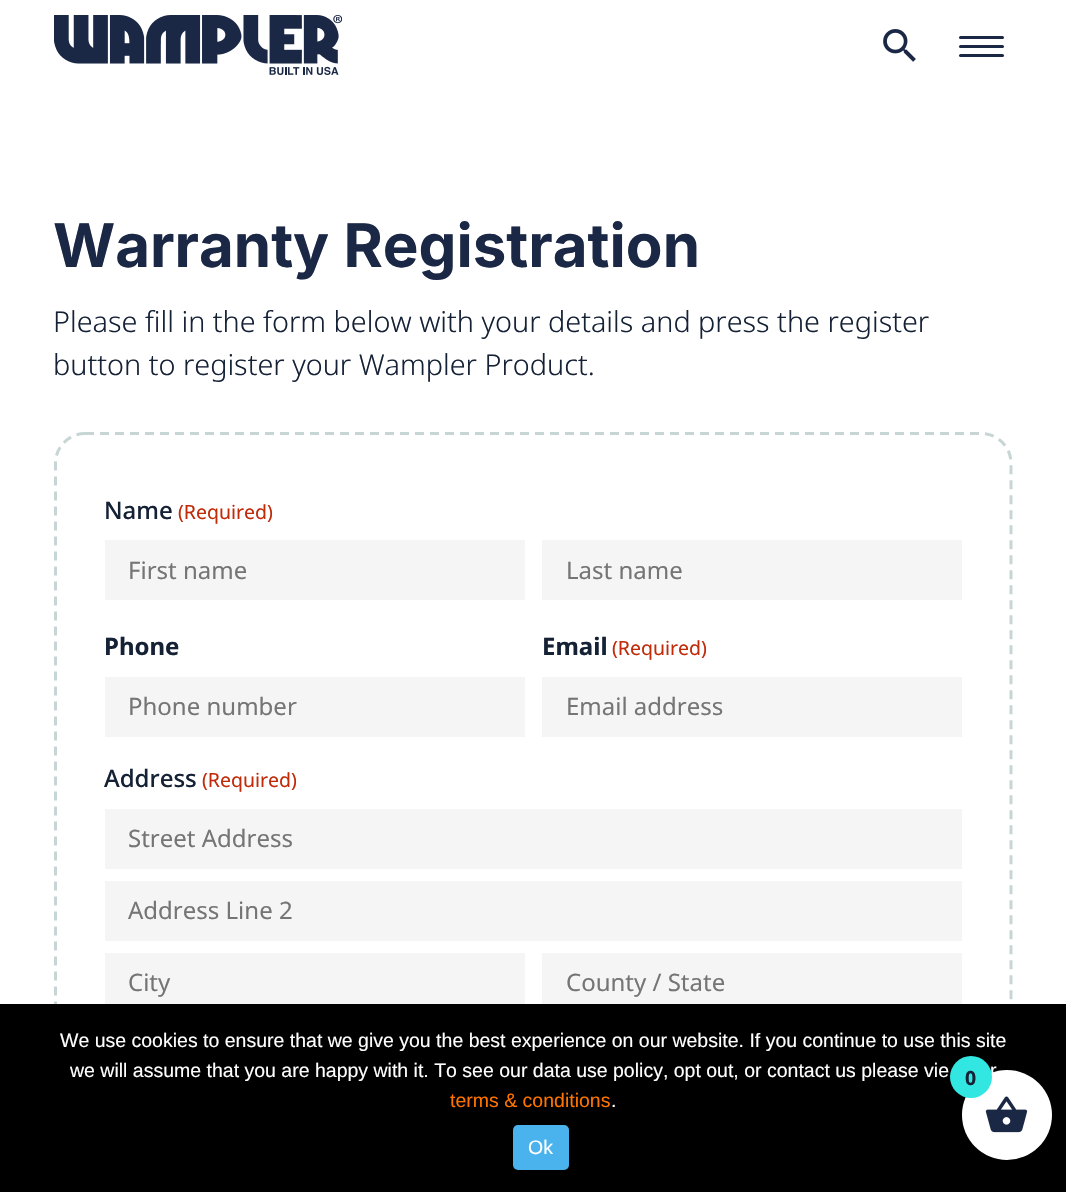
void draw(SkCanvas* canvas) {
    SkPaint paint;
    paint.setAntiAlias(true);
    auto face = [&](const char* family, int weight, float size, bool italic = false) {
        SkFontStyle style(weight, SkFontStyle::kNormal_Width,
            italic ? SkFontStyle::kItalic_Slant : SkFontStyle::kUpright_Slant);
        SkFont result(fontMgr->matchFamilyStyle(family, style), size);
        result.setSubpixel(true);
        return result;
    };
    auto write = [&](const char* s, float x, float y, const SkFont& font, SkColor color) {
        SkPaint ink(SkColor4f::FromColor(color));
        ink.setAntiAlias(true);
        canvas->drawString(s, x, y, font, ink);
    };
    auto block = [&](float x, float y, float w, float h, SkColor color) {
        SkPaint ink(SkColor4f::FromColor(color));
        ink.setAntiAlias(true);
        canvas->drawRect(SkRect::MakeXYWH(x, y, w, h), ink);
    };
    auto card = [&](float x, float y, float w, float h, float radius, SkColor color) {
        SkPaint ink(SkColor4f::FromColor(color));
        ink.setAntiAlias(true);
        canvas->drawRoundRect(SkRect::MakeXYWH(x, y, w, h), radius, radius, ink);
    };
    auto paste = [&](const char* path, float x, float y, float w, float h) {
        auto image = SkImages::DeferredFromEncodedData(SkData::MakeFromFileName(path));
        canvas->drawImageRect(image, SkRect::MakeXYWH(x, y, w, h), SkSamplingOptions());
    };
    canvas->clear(SK_ColorWHITE);
    paste("pic1.png", 54, 15, 288, 60);
    card(959, 36, 45, 3, 1.5f, SkColorSetRGB(27, 40, 69));
    card(959, 45, 45, 3, 1.5f, SkColorSetRGB(27, 40, 69));
    card(959, 54, 45, 3, 1.5f, SkColorSetRGB(27, 40, 69));
    paste("pic2.png", 883, 29, 33, 33);
    auto kFont1 = face("Inter", 700, 60);
    write("Warranty Registration", 53, 267, kFont1, SkColorSetRGB(27, 40, 69));
    auto kFont2 = face("Noto Sans", 300, 28.8f);
    write("Please fill in the form below with your details and press the register", 53, 332, kFont2, SkColorSetRGB(21, 33, 53));
    write("button to register your Wampler Product.", 53, 375, kFont2, SkColorSetRGB(21, 33, 53));
    paint.setStyle(SkPaint::kStroke_Style);
    paint.setStrokeWidth(3);
    paint.setColor(SkColorSetRGB(199, 214, 213));
    paint.setPathEffect(SkDashPathEffect::Make({{9, 6}}, 0));
    canvas->drawPath(SkPathBuilder().moveTo(85, 433.5f).lineTo(981.5f, 433.5f).cubicTo(997.5f, 433.5f, 1011, 447, 1011, 463).lineTo(1011, 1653.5f).cubicTo(1011, 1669.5f, 997.5f, 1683, 981.5f, 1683).lineTo(85, 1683).cubicTo(69, 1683, 55.5f, 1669.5f, 55.5f, 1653.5f).lineTo(55.5f, 463).cubicTo(55.5f, 447, 69, 433.5f, 85, 433.5f).close().detach(), paint);
    paint.setPathEffect(nullptr);
    auto kFont3 = face("Noto Sans", 500, 24);
    write("Name", 104, 519, kFont3, SkColorSetRGB(21, 33, 53));
    auto kFont4 = face("Noto Sans", 400, 19.5f);
    write("(Required)", 178, 519, kFont4, SkColorSetRGB(192, 43, 10));
    block(105, 540, 420, 60, SkColorSetRGB(245, 245, 245));
    auto kFont5 = face("Noto Sans", 400, 24);
    write("First name", 128, 579, kFont5, SkColorSetRGB(117, 117, 117));
    block(542, 540, 420, 60, SkColorSetRGB(245, 245, 245));
    write("Last name", 566, 579, kFont5, SkColorSetRGB(117, 117, 117));
    auto kFont6 = face("Noto Sans", 700, 24);
    write("Phone", 104, 655, kFont6, SkColorSetRGB(21, 33, 53));
    block(105, 677, 420, 60, SkColorSetRGB(245, 245, 245));
    write("Phone number", 128, 715, kFont5, SkColorSetRGB(117, 117, 117));
    write("Email", 542, 655, kFont6, SkColorSetRGB(21, 33, 53));
    write("(Required)", 612, 655, kFont4, SkColorSetRGB(192, 43, 10));
    block(542, 677, 420, 60, SkColorSetRGB(245, 245, 245));
    write("Email address", 566, 715, kFont5, SkColorSetRGB(117, 117, 117));
    write("Address", 104, 787, kFont3, SkColorSetRGB(21, 33, 53));
    write("(Required)", 202, 787, kFont4, SkColorSetRGB(192, 43, 10));
    block(105, 809, 857, 60, SkColorSetRGB(245, 245, 245));
    write("Street Address", 128, 847, kFont5, SkColorSetRGB(117, 117, 117));
    block(105, 881, 857, 60, SkColorSetRGB(245, 245, 245));
    write("Address Line 2", 128, 919, kFont5, SkColorSetRGB(117, 117, 117));
    block(105, 953, 420, 51, SkColorSetRGB(245, 245, 245));
    write("City", 128, 991, kFont5, SkColorSetRGB(117, 117, 117));
    block(542, 953, 420, 51, SkColorSetRGB(245, 245, 245));
    write("County / State", 566, 991, kFont5, SkColorSetRGB(117, 117, 117));
    block(0, 1004, 1066, 188, SK_ColorBLACK);
    auto kFont7 = face("Liberation Sans", 400, 19.5f);
    write("We use cookies to ensure that we give you the best experience on our website. If you continue to use this site", 60, 1047, kFont7, SK_ColorWHITE);
    write("we will assume that you are happy with it. To see our data use policy, opt out, or contact us please vie", 70, 1077, kFont7, SK_ColorWHITE);
    write("r", 990, 1077, kFont7, SK_ColorWHITE);
    write("terms & conditions", 450, 1107, kFont7, SkColorSetRGB(255, 115, 0));
    write(".", 611, 1107, kFont7, SK_ColorWHITE);
    card(513, 1125, 56, 45, 5, SkColorSetRGB(74, 179, 237));
    write("Ok", 528, 1154, kFont7, SK_ColorWHITE);
    paint.setStyle(SkPaint::kFill_Style);
    paint.setColor(SK_ColorWHITE);
    canvas->drawCircle(1007, 1115, 45, paint);
    paste("pic3.png", 985, 1096, 43, 37);
    paint.setColor(SkColorSetRGB(50, 230, 226));
    canvas->drawCircle(971, 1077, 21, paint);
    auto kFont8 = face("Noto Sans", 700, 19.5f);
    write("0", 965, 1085, kFont8, SkColorSetRGB(21, 33, 53));
}
